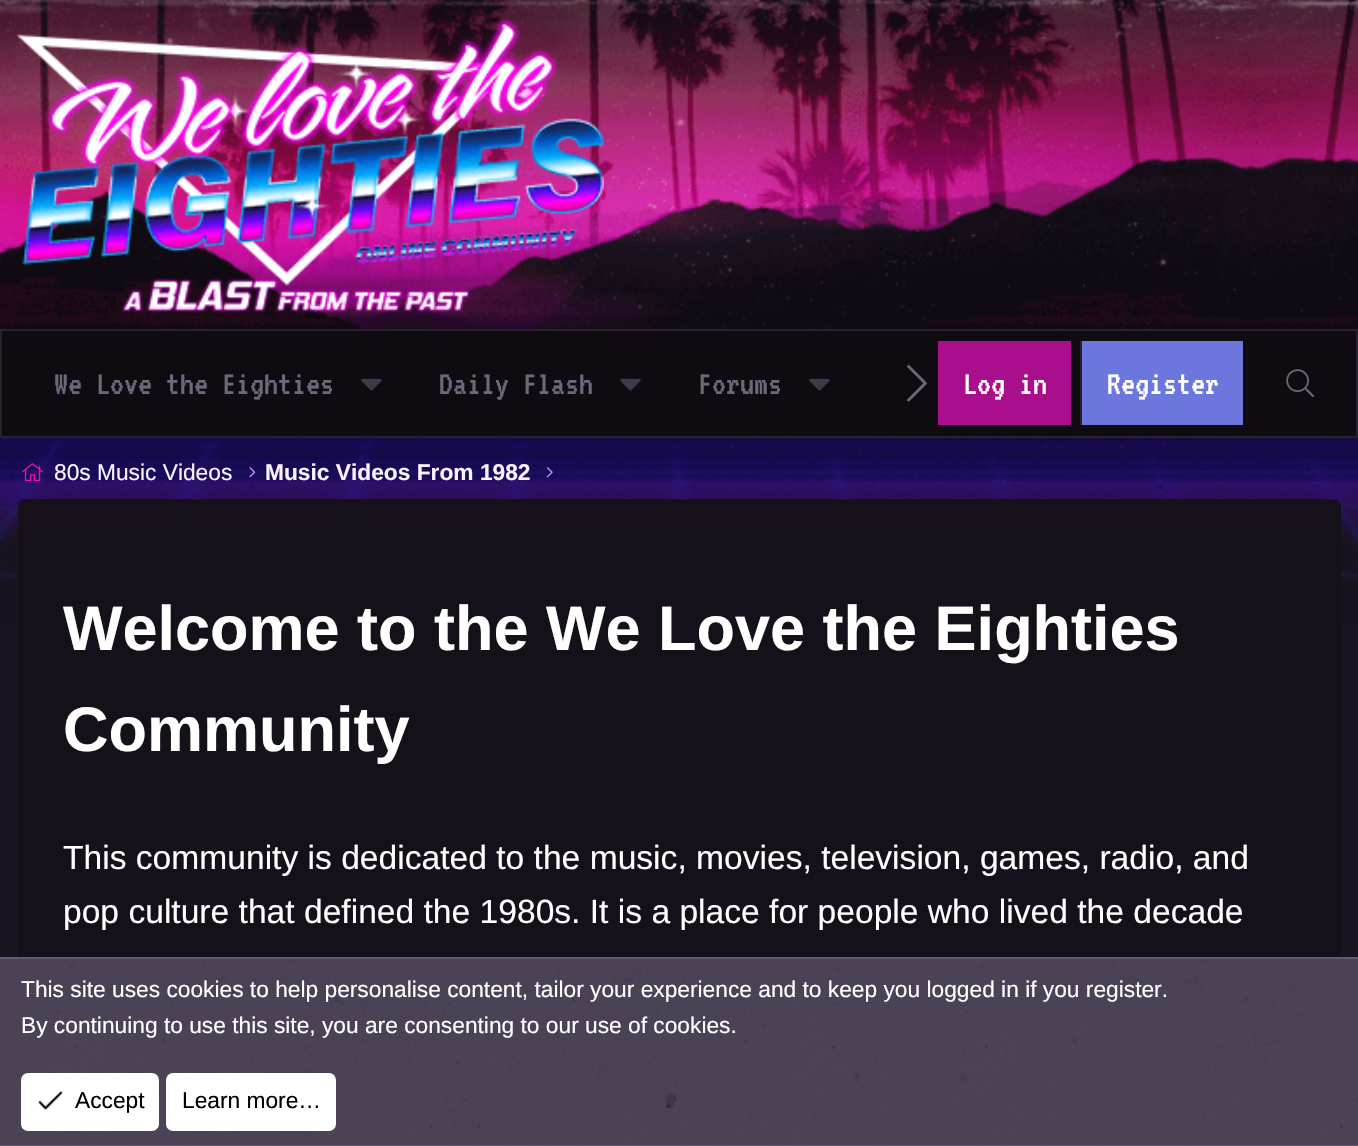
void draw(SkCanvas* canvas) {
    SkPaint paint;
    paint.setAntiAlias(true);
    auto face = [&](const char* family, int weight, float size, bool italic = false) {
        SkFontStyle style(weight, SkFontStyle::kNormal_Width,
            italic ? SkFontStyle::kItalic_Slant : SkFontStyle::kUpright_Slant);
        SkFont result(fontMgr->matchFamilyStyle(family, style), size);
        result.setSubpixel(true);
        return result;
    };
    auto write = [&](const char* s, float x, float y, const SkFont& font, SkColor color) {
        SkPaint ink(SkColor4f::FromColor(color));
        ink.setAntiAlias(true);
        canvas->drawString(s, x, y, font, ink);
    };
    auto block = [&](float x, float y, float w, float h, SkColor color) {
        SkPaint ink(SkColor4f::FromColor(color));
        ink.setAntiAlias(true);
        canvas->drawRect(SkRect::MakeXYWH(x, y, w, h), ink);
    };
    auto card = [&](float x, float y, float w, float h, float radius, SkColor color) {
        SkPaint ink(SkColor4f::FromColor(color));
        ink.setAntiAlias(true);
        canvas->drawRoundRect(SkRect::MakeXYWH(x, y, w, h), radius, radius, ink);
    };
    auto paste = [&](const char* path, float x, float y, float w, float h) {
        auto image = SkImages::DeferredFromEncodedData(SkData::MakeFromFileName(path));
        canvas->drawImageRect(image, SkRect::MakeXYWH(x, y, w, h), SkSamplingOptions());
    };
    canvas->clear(SkColorSetRGB(25, 20, 32));
    paste("pic1.png", 0, 0, 1358, 628);
    paste("pic2.png", 17, 16, 587, 297);
    paint.setColor(SkColorSetRGB(15, 12, 17));
    canvas->drawRect(SkRect::MakeXYWH(1, 330, 1356, 107), paint);
    paint.setStyle(SkPaint::kStroke_Style);
    paint.setStrokeWidth(2);
    paint.setColor(SkColorSetRGB(42, 32, 48));
    canvas->drawRect(SkRect::MakeXYWH(1, 330, 1356, 107), paint);
    auto kFont1 = face("VT323", 400, 35);
    write("We Love the Eighties", 54, 394, kFont1, SkColorSetRGB(114, 102, 123));
    paste("pic3.png", 361, 378, 21, 13);
    write("Daily Flash", 439, 394, kFont1, SkColorSetRGB(114, 102, 123));
    paste("pic3.png", 620, 378, 21, 13);
    write("Forums", 698, 394, kFont1, SkColorSetRGB(114, 102, 123));
    paste("pic3.png", 809, 378, 21, 13);
    paste("pic4.png", 907, 365, 20, 37);
    block(938, 341, 133, 84, SkColorSetRGB(169, 14, 141));
    write("Log in", 963, 394, kFont1, SK_ColorWHITE);
    block(1082, 341, 161, 84, SkColorSetRGB(107, 119, 221));
    block(1080, 341, 2, 84, SkColorSetRGB(41, 31, 49));
    write("Register", 1107, 394, kFont1, SK_ColorWHITE);
    paste("pic5.png", 1286, 369, 28, 28);
    paste("pic6.png", 19, 455, 1321, 35);
    paste("pic7.png", 22, 463, 21, 18);
    auto kFont2 = face("Liberation Sans", 400, 22.75f);
    write("80s Music Videos", 54, 480, kFont2, SkColorSetRGB(249, 243, 255));
    paste("pic8.png", 249, 467, 7, 11);
    auto kFont3 = face("Liberation Sans", 700, 22.75f);
    write("Music Videos From 1982", 265, 480, kFont3, SkColorSetRGB(249, 243, 255));
    paste("pic9.png", 546, 467, 7, 11);
    card(18, 499, 1323, 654, 7, SkColorSetRGB(21, 16, 25));
    auto kFont4 = face("Liberation Sans", 700, 63);
    write("Welcome to the We Love the Eighties", 63, 650, kFont4, SK_ColorWHITE);
    write("Community", 63, 751, kFont4, SK_ColorWHITE);
    auto kFont5 = face("Liberation Sans", 400, 33.6f);
    write("This community is dedicated to the music, movies, television, games, radio, and", 63, 869, kFont5, SK_ColorWHITE);
    write("pop culture that defined the 1980s. It is a place for people who lived the decade", 63, 923, kFont5, SK_ColorWHITE);
    block(0, 959, 1358, 186, SkColorSetRGB(76, 66, 86));
    paste("pic10.png", 0, 959, 1358, 186);
    block(0, 957, 1358, 2, SkColorSetRGB(102, 88, 115));
    block(0, 1145, 1358, 1, SkColorSetRGB(102, 88, 115));
    write("This site uses cookies to help personalise content, tailor your experience and to keep you logged in if you register.", 21, 997, kFont2, SK_ColorWHITE);
    write("By continuing to use this site, you are consenting to our use of cookies.", 21, 1033, kFont2, SK_ColorWHITE);
    paint.setStyle(SkPaint::kFill_Style);
    paint.setColor(SK_ColorWHITE);
    canvas->drawRoundRect(SkRect::MakeXYWH(22, 1074, 136, 56), 6, 6, paint);
    paint.setStyle(SkPaint::kStroke_Style);
    canvas->drawRoundRect(SkRect::MakeXYWH(22, 1074, 136, 56), 6, 6, paint);
    paste("pic11.png", 38, 1090, 25, 20);
    write("Accept", 75, 1108, kFont2, SK_ColorBLACK);
    paint.setStyle(SkPaint::kFill_Style);
    canvas->drawRoundRect(SkRect::MakeXYWH(167, 1074, 168, 56), 6, 6, paint);
    paint.setStyle(SkPaint::kStroke_Style);
    canvas->drawRoundRect(SkRect::MakeXYWH(167, 1074, 168, 56), 6, 6, paint);
    write("Learn more…", 182, 1108, kFont2, SK_ColorBLACK);
}
